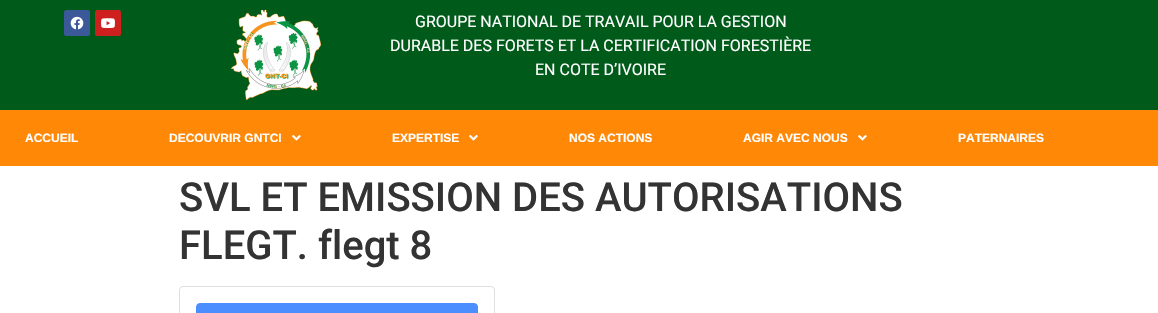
void draw(SkCanvas* canvas) {
    SkPaint paint;
    paint.setAntiAlias(true);
    auto face = [&](const char* family, int weight, float size, bool italic = false) {
        SkFontStyle style(weight, SkFontStyle::kNormal_Width,
            italic ? SkFontStyle::kItalic_Slant : SkFontStyle::kUpright_Slant);
        SkFont result(fontMgr->matchFamilyStyle(family, style), size);
        result.setSubpixel(true);
        return result;
    };
    auto write = [&](const char* s, float x, float y, const SkFont& font, SkColor color) {
        SkPaint ink(SkColor4f::FromColor(color));
        ink.setAntiAlias(true);
        canvas->drawString(s, x, y, font, ink);
    };
    auto block = [&](float x, float y, float w, float h, SkColor color) {
        SkPaint ink(SkColor4f::FromColor(color));
        ink.setAntiAlias(true);
        canvas->drawRect(SkRect::MakeXYWH(x, y, w, h), ink);
    };
    auto card = [&](float x, float y, float w, float h, float radius, SkColor color) {
        SkPaint ink(SkColor4f::FromColor(color));
        ink.setAntiAlias(true);
        canvas->drawRoundRect(SkRect::MakeXYWH(x, y, w, h), radius, radius, ink);
    };
    auto paste = [&](const char* path, float x, float y, float w, float h) {
        auto image = SkImages::DeferredFromEncodedData(SkData::MakeFromFileName(path));
        canvas->drawImageRect(image, SkRect::MakeXYWH(x, y, w, h), SkSamplingOptions());
    };
    canvas->clear(SK_ColorWHITE);
    block(0, 0, 1158, 110, SkColorSetRGB(0, 90, 25));
    card(64, 10, 26, 26, 2.5f, SkColorSetRGB(59, 89, 152));
    paste("pic1.png", 70, 16, 14, 14);
    card(95, 10, 26, 26, 2.5f, SkColorSetRGB(205, 32, 31));
    paste("pic2.png", 101, 18, 14, 10);
    paste("pic3.png", 231, 10, 90, 90);
    auto kFont1 = face("Roboto", 400, 16);
    write("GROUPE NATIONAL DE TRAVAIL POUR LA GESTION", 415, 27, kFont1, SK_ColorWHITE);
    write("DURABLE DES FORETS ET LA CERTIFICATION FORESTIÈRE", 390, 51, kFont1, SK_ColorWHITE);
    write("EN COTE D’IVOIRE", 535, 75, kFont1, SK_ColorWHITE);
    block(0, 110, 1158, 56, SkColorSetRGB(255, 136, 7));
    auto kFont2 = face("Liberation Sans", 700, 12);
    write("ACCUEIL", 25, 142, kFont2, SK_ColorWHITE);
    write("DECOUVRIR GNTCI", 169, 142, kFont2, SK_ColorWHITE);
    paste("pic4.png", 292, 135, 9, 6);
    write("EXPERTISE", 392, 142, kFont2, SK_ColorWHITE);
    paste("pic4.png", 469, 135, 9, 6);
    write("NOS ACTIONS", 569, 142, kFont2, SK_ColorWHITE);
    write("AGIR AVEC NOUS", 743, 142, kFont2, SK_ColorWHITE);
    paste("pic4.png", 858, 135, 9, 6);
    write("PATERNAIRES", 958, 142, kFont2, SK_ColorWHITE);
    auto kFont3 = face("Roboto", 500, 40);
    write("SVL ET EMISSION DES AUTORISATIONS", 179, 211, kFont3, SkColorSetRGB(51, 51, 51));
    write("FLEGT. flegt 8", 179, 259, kFont3, SkColorSetRGB(51, 51, 51));
    paint.setStyle(SkPaint::kStroke_Style);
    paint.setStrokeWidth(1);
    paint.setColor(SkColorSetRGB(223, 223, 223));
    canvas->drawRoundRect(SkRect::MakeXYWH(179.5f, 286.5f, 315, 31), 3.5f, 3.5f, paint);
    paint.setStyle(SkPaint::kFill_Style);
    paint.setColor(SkColorSetRGB(74, 142, 255));
    canvas->drawRoundRect(SkRect::MakeXYWH(196.5f, 303.5f, 281, 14), 3.5f, 3.5f, paint);
    paint.setStyle(SkPaint::kStroke_Style);
    canvas->drawRoundRect(SkRect::MakeXYWH(196.5f, 303.5f, 281, 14), 3.5f, 3.5f, paint);
}
